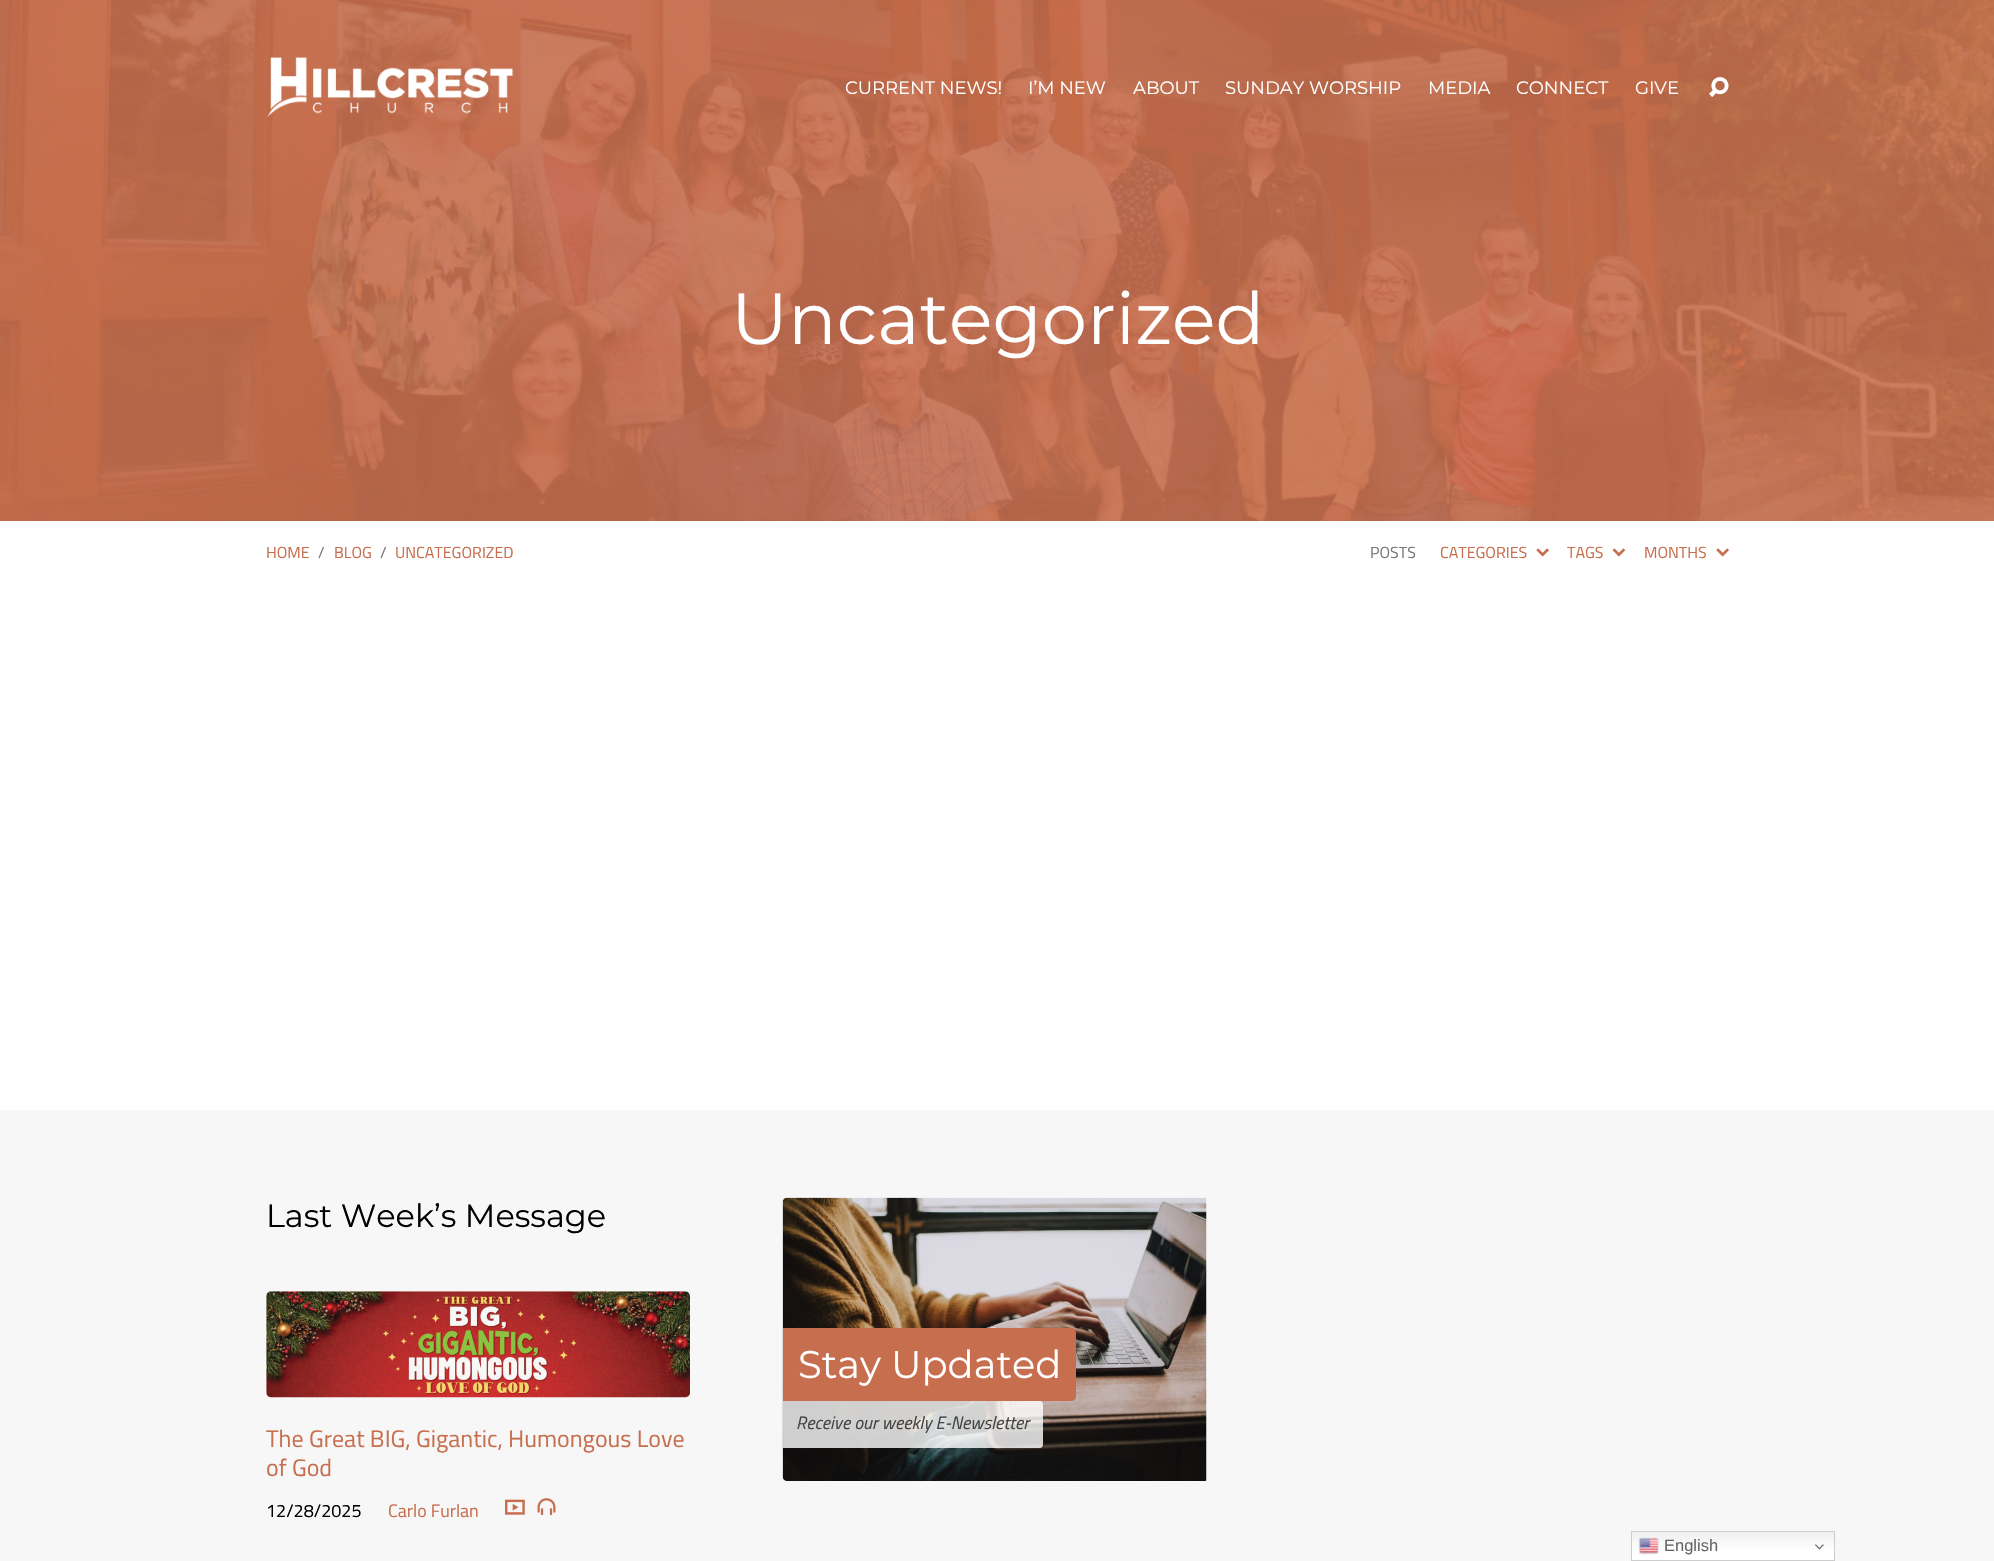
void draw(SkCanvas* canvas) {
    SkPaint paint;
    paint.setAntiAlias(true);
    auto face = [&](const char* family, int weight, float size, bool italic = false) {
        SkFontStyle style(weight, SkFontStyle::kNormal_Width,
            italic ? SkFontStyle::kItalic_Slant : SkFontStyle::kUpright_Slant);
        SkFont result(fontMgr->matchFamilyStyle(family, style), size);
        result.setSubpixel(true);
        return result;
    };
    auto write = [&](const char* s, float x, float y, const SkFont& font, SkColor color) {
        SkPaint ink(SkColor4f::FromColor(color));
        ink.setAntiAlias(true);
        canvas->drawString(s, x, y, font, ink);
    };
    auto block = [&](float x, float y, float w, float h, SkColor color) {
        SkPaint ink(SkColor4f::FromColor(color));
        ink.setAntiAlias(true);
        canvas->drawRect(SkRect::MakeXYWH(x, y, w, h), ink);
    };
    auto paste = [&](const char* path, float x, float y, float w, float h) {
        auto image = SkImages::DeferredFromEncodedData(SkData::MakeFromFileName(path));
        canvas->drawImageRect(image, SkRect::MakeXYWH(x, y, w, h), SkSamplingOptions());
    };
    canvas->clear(SK_ColorWHITE);
    block(0, 0, 1994, 521, SkColorSetRGB(198, 110, 78));
    paste("pic3.png", 0, 0, 1994, 522);
    paste("pic1.png", 267, 57, 246, 60);
    auto kFont1 = face("Montserrat", 400, 18);
    write("CURRENT NEWS!", 845, 94, kFont1, SK_ColorWHITE);
    write("I’M NEW", 1028, 94, kFont1, SK_ColorWHITE);
    write("ABOUT", 1133, 94, kFont1, SK_ColorWHITE);
    write("SUNDAY WORSHIP", 1225, 94, kFont1, SK_ColorWHITE);
    write("MEDIA", 1428, 94, kFont1, SK_ColorWHITE);
    write("CONNECT", 1516, 94, kFont1, SK_ColorWHITE);
    write("GIVE", 1635, 94, kFont1, SK_ColorWHITE);
    paste("pic2.png", 1709, 77, 20, 20);
    auto kFont2 = face("Montserrat", 400, 72);
    write("Uncategorized", 731, 344, kFont2, SK_ColorWHITE);
    auto kFont3 = face("Titillium Web", 400, 16);
    write("HOME", 266, 558, kFont3, SkColorSetRGB(198, 110, 78));
    write("/", 318, 558, kFont3, SkColorSetRGB(119, 119, 119));
    write("BLOG", 334, 558, kFont3, SkColorSetRGB(198, 110, 78));
    write("/", 380, 558, kFont3, SkColorSetRGB(119, 119, 119));
    write("UNCATEGORIZED", 395, 558, kFont3, SkColorSetRGB(198, 110, 78));
    write("POSTS", 1370, 558, kFont3, SkColorSetRGB(119, 119, 119));
    write("CATEGORIES", 1440, 558, kFont3, SkColorSetRGB(198, 110, 78));
    paste("pic4.png", 1536, 548, 13, 9);
    write("TAGS", 1567, 558, kFont3, SkColorSetRGB(198, 110, 78));
    paste("pic5.png", 1612, 548, 14, 9);
    write("MONTHS", 1644, 558, kFont3, SkColorSetRGB(198, 110, 78));
    paste("pic4.png", 1716, 548, 13, 9);
    block(0, 1110, 1994, 451, SkColorSetRGB(247, 247, 247));
    auto kFont4 = face("Montserrat", 400, 32);
    write("Last Week’s Message", 266, 1227, kFont4, SK_ColorBLACK);
    paste("pic6.png", 266, 1291, 424, 107);
    auto kFont5 = face("Titillium Web", 400, 24);
    write("The Great BIG, Gigantic, Humongous Love", 266, 1447, kFont5, SkColorSetRGB(198, 110, 78));
    write("of God", 266, 1476, kFont5, SkColorSetRGB(198, 110, 78));
    auto kFont6 = face("Titillium Web", 400, 18);
    write("12/28/2025", 266, 1517, kFont6, SK_ColorBLACK);
    write("Carlo Furlan", 388, 1517, kFont6, SkColorSetRGB(198, 110, 78));
    paste("pic7.png", 505, 1499, 20, 16);
    paste("pic8.png", 537, 1498, 19, 18);
    block(783, 1198, 423, 283, SkColorSetRGB(237, 237, 237));
    paste("pic9.png", 782, 1197, 425, 284);
    paint.setColor(SkColorSetRGB(198, 110, 78));
    canvas->drawPath(SkPathBuilder().moveTo(783, 1328).lineTo(1071, 1328).cubicTo(1074, 1328, 1076, 1330, 1076, 1333).lineTo(1076, 1396).cubicTo(1076, 1399, 1074, 1401, 1071, 1401).lineTo(783, 1401).close().detach(), paint);
    auto kFont7 = face("Montserrat", 400, 38.5f);
    write("Stay Updated", 798, 1378, kFont7, SK_ColorWHITE);
    paint.setColor(SkColorSetARGB(204, 255, 255, 255));
    canvas->drawPath(SkPathBuilder().moveTo(783, 1401).lineTo(1040, 1401).cubicTo(1041.5f, 1401, 1043, 1402.5f, 1043, 1404).lineTo(1043, 1445).cubicTo(1043, 1446.5f, 1041.5f, 1448, 1040, 1448).lineTo(783, 1448).close().detach(), paint);
    auto kFont8 = face("Titillium Web", 400, 18, true);
    write("Receive our weekly E-Newsletter", 796, 1429, kFont8, SkColorSetRGB(68, 68, 68));
    {
        const SkColor colors[] = {SkColorSetRGB(239, 239, 239), SK_ColorWHITE};
        const float stops[] = {0, 0.7f};
        const SkPoint ends[] = {{1733, 1531}, {1733, 1561}};
        paint.setShader(SkGradientShader::MakeLinear(ends, colors, stops, 2, SkTileMode::kClamp));
        paint.setAlpha(255);
    }
    canvas->drawRect(SkRect::MakeXYWH(1632, 1532, 202, 28), paint);
    paint.setStyle(SkPaint::kStroke_Style);
    paint.setStrokeWidth(1);
    paint.setShader(nullptr);
    paint.setColor(SkColorSetRGB(204, 204, 204));
    canvas->drawRect(SkRect::MakeXYWH(1631.5f, 1531.5f, 203, 29), paint);
    paste("pic10.png", 1638, 1537, 21, 18);
    auto kFont9 = face("Liberation Sans", 400, 16.5f);
    write("English", 1664, 1551, kFont9, SkColorSetRGB(102, 102, 102));
    paste("pic11.png", 1815, 1544, 9, 6);
}
